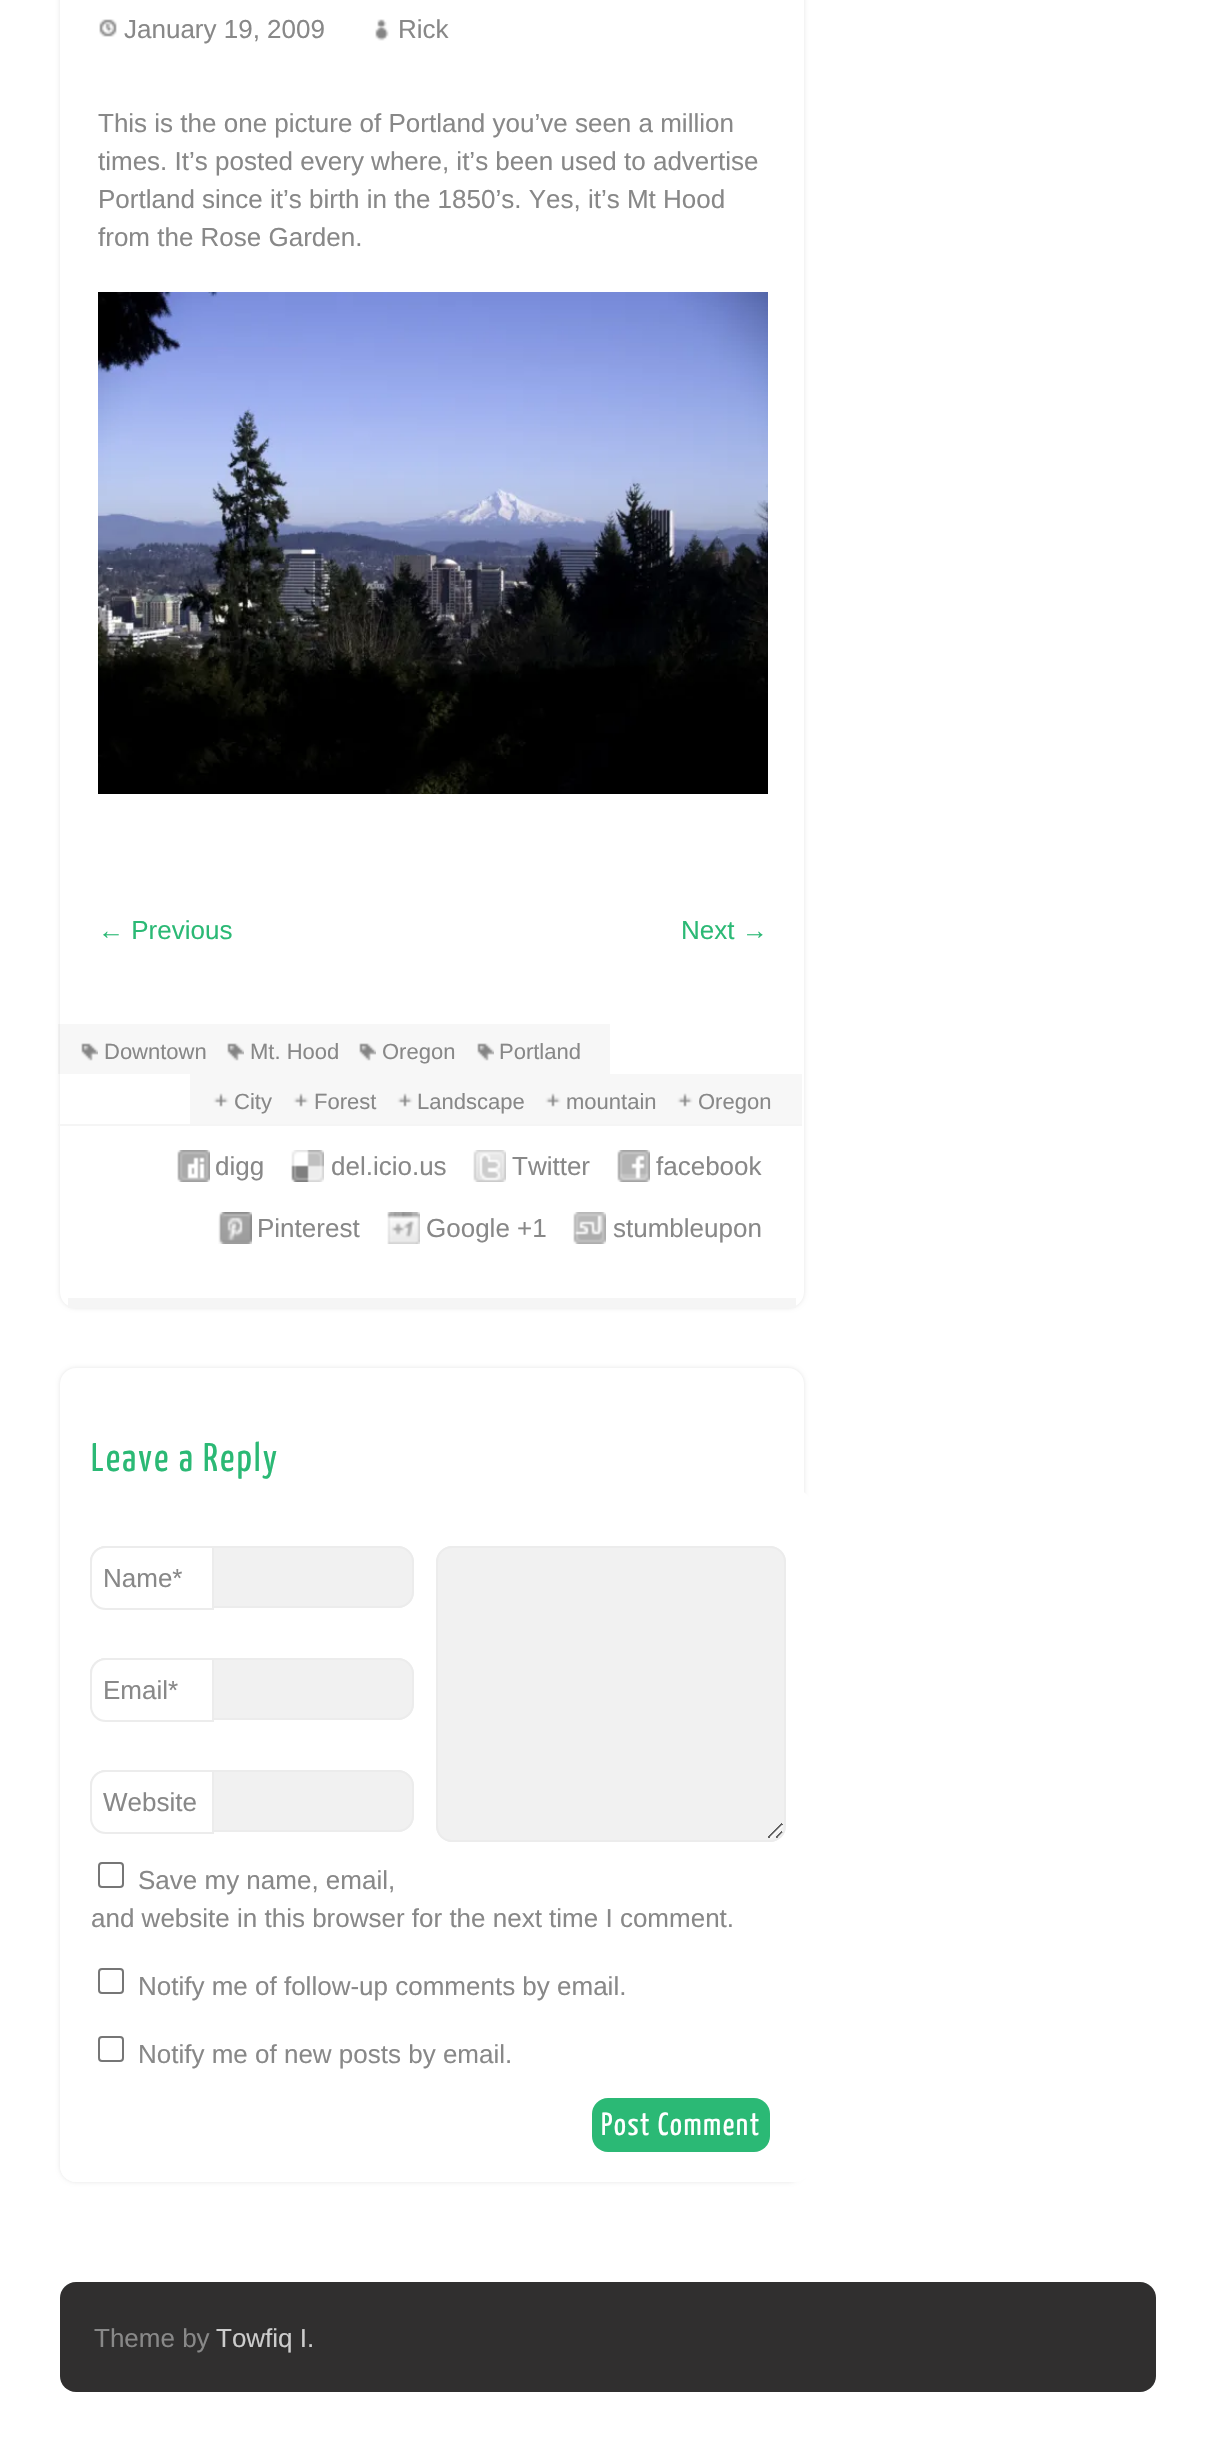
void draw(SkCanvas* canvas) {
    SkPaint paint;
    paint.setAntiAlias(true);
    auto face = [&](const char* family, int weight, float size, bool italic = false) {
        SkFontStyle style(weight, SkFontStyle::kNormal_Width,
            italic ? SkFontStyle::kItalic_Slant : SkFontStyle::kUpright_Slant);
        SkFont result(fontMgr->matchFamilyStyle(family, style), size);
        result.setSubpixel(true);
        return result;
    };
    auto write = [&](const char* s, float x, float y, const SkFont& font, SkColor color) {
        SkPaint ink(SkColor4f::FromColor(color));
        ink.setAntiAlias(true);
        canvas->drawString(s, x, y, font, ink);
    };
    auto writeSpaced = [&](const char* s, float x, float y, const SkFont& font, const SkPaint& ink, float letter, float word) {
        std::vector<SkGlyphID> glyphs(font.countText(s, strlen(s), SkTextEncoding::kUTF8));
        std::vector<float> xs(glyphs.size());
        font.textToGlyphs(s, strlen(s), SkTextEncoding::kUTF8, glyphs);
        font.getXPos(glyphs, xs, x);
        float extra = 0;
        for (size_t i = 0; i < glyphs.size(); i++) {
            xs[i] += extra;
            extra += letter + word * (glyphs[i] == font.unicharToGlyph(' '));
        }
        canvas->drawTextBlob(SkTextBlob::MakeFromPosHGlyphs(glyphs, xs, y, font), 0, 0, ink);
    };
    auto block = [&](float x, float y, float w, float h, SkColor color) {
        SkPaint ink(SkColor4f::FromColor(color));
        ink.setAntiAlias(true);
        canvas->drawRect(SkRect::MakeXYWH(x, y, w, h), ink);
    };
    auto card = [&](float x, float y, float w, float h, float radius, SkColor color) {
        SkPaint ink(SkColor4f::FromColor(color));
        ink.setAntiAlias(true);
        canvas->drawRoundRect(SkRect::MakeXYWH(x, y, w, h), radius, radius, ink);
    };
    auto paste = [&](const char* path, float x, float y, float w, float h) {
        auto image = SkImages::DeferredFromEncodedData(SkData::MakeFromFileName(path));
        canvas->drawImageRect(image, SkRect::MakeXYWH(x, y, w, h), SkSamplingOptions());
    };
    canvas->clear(SK_ColorWHITE);
    paint.setColor(SkColorSetARGB(26, 0, 0, 0));
    paint.setMaskFilter(SkMaskFilter::MakeBlur(kNormal_SkBlurStyle, 2));
    canvas->drawRoundRect(SkRect::MakeXYWH(60, -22, 744, 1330), 16, 16, paint);
    paint.setMaskFilter(nullptr);
    card(60, -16, 744, 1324, 16, SK_ColorWHITE);
    block(68, 1298, 728, 10, SkColorSetRGB(245, 245, 245));
    paste("pic1.png", 99, 19, 18, 18);
    auto kFont1 = face("Liberation Sans", 400, 26);
    write("January 19, 2009", 124, 38, kFont1, SkColorSetRGB(136, 136, 136));
    paste("pic2.png", 375, 19, 14, 22);
    write("Rick", 398, 38, kFont1, SkColorSetRGB(136, 136, 136));
    write("This is the one picture of Portland you’ve seen a million", 98, 132, kFont1, SkColorSetRGB(136, 136, 136));
    write("times. It’s posted every where, it’s been used to advertise", 98, 170, kFont1, SkColorSetRGB(136, 136, 136));
    write("Portland since it’s birth in the 1850’s. Yes, it’s Mt Hood", 98, 208, kFont1, SkColorSetRGB(136, 136, 136));
    write("from the Rose Garden.", 98, 246, kFont1, SkColorSetRGB(136, 136, 136));
    paste("pic3.png", 98, 292, 670, 502);
    write("← Previous", 98, 939, kFont1, SkColorSetRGB(43, 185, 117));
    write("Next →", 681, 939, kFont1, SkColorSetRGB(43, 185, 117));
    block(58, 1124, 744, 2, SkColorSetRGB(245, 245, 245));
    block(58, 1024, 552, 50, SkColorSetARGB(8, 0, 0, 0));
    paste("pic4.png", 81, 1043, 17, 18);
    auto kFont2 = face("Liberation Sans", 400, 22);
    write("Downtown", 104, 1059, kFont2, SkColorSetRGB(136, 136, 136));
    paste("pic4.png", 227, 1043, 17, 18);
    write("Mt. Hood", 250, 1059, kFont2, SkColorSetRGB(136, 136, 136));
    paste("pic4.png", 359, 1043, 17, 18);
    write("Oregon", 382, 1059, kFont2, SkColorSetRGB(136, 136, 136));
    paste("pic4.png", 477, 1043, 17, 18);
    write("Portland", 499, 1059, kFont2, SkColorSetRGB(136, 136, 136));
    block(190, 1074, 612, 50, SkColorSetRGB(247, 247, 247));
    paste("pic5.png", 213, 1093, 16, 14);
    write("City", 234, 1109, kFont2, SkColorSetRGB(136, 136, 136));
    paste("pic5.png", 293, 1093, 16, 14);
    write("Forest", 314, 1109, kFont2, SkColorSetRGB(136, 136, 136));
    paste("pic5.png", 397, 1093, 16, 14);
    write("Landscape", 417, 1109, kFont2, SkColorSetRGB(136, 136, 136));
    paste("pic5.png", 545, 1093, 16, 14);
    write("mountain", 566, 1109, kFont2, SkColorSetRGB(136, 136, 136));
    paste("pic5.png", 677, 1093, 16, 14);
    write("Oregon", 698, 1109, kFont2, SkColorSetRGB(136, 136, 136));
    paste("pic6.png", 177, 1150, 33, 32);
    write("digg", 215, 1175, kFont1, SkColorSetRGB(136, 136, 136));
    paste("pic7.png", 291, 1150, 33, 32);
    write("del.icio.us", 331, 1175, kFont1, SkColorSetRGB(136, 136, 136));
    paste("pic8.png", 473, 1150, 33, 32);
    write("Twitter", 512, 1175, kFont1, SkColorSetRGB(136, 136, 136));
    paste("pic9.png", 617, 1150, 33, 32);
    write("facebook", 656, 1175, kFont1, SkColorSetRGB(136, 136, 136));
    paste("pic10.png", 218, 1212, 34, 32);
    write("Pinterest", 257, 1237, kFont1, SkColorSetRGB(136, 136, 136));
    paste("pic11.png", 387, 1212, 33, 32);
    write("Google +1", 426, 1237, kFont1, SkColorSetRGB(136, 136, 136));
    paste("pic12.png", 573, 1212, 33, 32);
    write("stumbleupon", 613, 1237, kFont1, SkColorSetRGB(136, 136, 136));
    paint.setMaskFilter(SkMaskFilter::MakeBlur(kNormal_SkBlurStyle, 2));
    canvas->drawRoundRect(SkRect::MakeXYWH(60, 1368, 744, 814), 16, 16, paint);
    paint.setMaskFilter(nullptr);
    card(60, 1368, 744, 814, 16, SK_ColorWHITE);
    auto kFont3 = face("Yanone Kaffeesatz", 400, 40);
    paint.setColor(SkColorSetRGB(43, 185, 117));
    writeSpaced("Leave a Reply", 91, 1471, kFont3, paint, 2, 0);
    card(60, 1490, 752, 692, 16, SK_ColorWHITE);
    paste("pic13.png", 90, 1546, 324, 62);
    paint.setStyle(SkPaint::kStroke_Style);
    paint.setStrokeWidth(2);
    paint.setColor(SkColorSetRGB(236, 236, 236));
    canvas->drawRoundRect(SkRect::MakeXYWH(91, 1547, 322, 60), 15, 15, paint);
    paint.setStyle(SkPaint::kFill_Style);
    paint.setColor(SK_ColorWHITE);
    canvas->drawPath(SkPathBuilder().moveTo(106, 1547).lineTo(213, 1547).lineTo(213, 1609).lineTo(106, 1609).cubicTo(97.5f, 1609, 91, 1602.5f, 91, 1594).lineTo(91, 1562).cubicTo(91, 1553.5f, 97.5f, 1547, 106, 1547).close().detach(), paint);
    paint.setStyle(SkPaint::kStroke_Style);
    paint.setColor(SkColorSetRGB(236, 236, 236));
    canvas->drawPath(SkPathBuilder().moveTo(106, 1547).lineTo(213, 1547).lineTo(213, 1609).lineTo(106, 1609).cubicTo(97.5f, 1609, 91, 1602.5f, 91, 1594).lineTo(91, 1562).cubicTo(91, 1553.5f, 97.5f, 1547, 106, 1547).close().detach(), paint);
    write("Name*", 103, 1587, kFont1, SkColorSetRGB(136, 136, 136));
    paste("pic14.png", 90, 1658, 324, 62);
    canvas->drawRoundRect(SkRect::MakeXYWH(91, 1659, 322, 60), 15, 15, paint);
    paint.setStyle(SkPaint::kFill_Style);
    paint.setColor(SK_ColorWHITE);
    canvas->drawPath(SkPathBuilder().moveTo(106, 1659).lineTo(213, 1659).lineTo(213, 1721).lineTo(106, 1721).cubicTo(97.5f, 1721, 91, 1714.5f, 91, 1706).lineTo(91, 1674).cubicTo(91, 1665.5f, 97.5f, 1659, 106, 1659).close().detach(), paint);
    paint.setStyle(SkPaint::kStroke_Style);
    paint.setColor(SkColorSetRGB(236, 236, 236));
    canvas->drawPath(SkPathBuilder().moveTo(106, 1659).lineTo(213, 1659).lineTo(213, 1721).lineTo(106, 1721).cubicTo(97.5f, 1721, 91, 1714.5f, 91, 1706).lineTo(91, 1674).cubicTo(91, 1665.5f, 97.5f, 1659, 106, 1659).close().detach(), paint);
    write("Email*", 103, 1699, kFont1, SkColorSetRGB(136, 136, 136));
    paste("pic13.png", 90, 1770, 324, 62);
    canvas->drawRoundRect(SkRect::MakeXYWH(91, 1771, 322, 60), 15, 15, paint);
    paint.setStyle(SkPaint::kFill_Style);
    paint.setColor(SK_ColorWHITE);
    canvas->drawPath(SkPathBuilder().moveTo(106, 1771).lineTo(213, 1771).lineTo(213, 1833).lineTo(106, 1833).cubicTo(97.5f, 1833, 91, 1826.5f, 91, 1818).lineTo(91, 1786).cubicTo(91, 1777.5f, 97.5f, 1771, 106, 1771).close().detach(), paint);
    paint.setStyle(SkPaint::kStroke_Style);
    paint.setColor(SkColorSetRGB(236, 236, 236));
    canvas->drawPath(SkPathBuilder().moveTo(106, 1771).lineTo(213, 1771).lineTo(213, 1833).lineTo(106, 1833).cubicTo(97.5f, 1833, 91, 1826.5f, 91, 1818).lineTo(91, 1786).cubicTo(91, 1777.5f, 97.5f, 1771, 106, 1771).close().detach(), paint);
    write("Website", 103, 1811, kFont1, SkColorSetRGB(136, 136, 136));
    paste("pic15.png", 436, 1546, 350, 296);
    canvas->drawRoundRect(SkRect::MakeXYWH(437, 1547, 348, 294), 15, 15, paint);
    paint.setColor(SkColorSetRGB(118, 118, 118));
    canvas->drawRoundRect(SkRect::MakeXYWH(99, 1863, 24, 24), 3, 3, paint);
    write("Save my name, email,", 138, 1889, kFont1, SkColorSetRGB(136, 136, 136));
    write("and website in this browser for the next time I comment.", 91, 1927, kFont1, SkColorSetRGB(136, 136, 136));
    canvas->drawRoundRect(SkRect::MakeXYWH(99, 1969, 24, 24), 3, 3, paint);
    write("Notify me of follow-up comments by email.", 138, 1995, kFont1, SkColorSetRGB(136, 136, 136));
    canvas->drawRoundRect(SkRect::MakeXYWH(99, 2037, 24, 24), 3, 3, paint);
    write("Notify me of new posts by email.", 138, 2063, kFont1, SkColorSetRGB(136, 136, 136));
    card(592, 2098, 178, 54, 16, SkColorSetRGB(43, 185, 117));
    auto kFont4 = face("Yanone Kaffeesatz", 400, 32);
    paint.setStyle(SkPaint::kFill_Style);
    paint.setColor(SK_ColorWHITE);
    writeSpaced("Post Comment", 601, 2135, kFont4, paint, 1.6f, 0);
    card(60, 2282, 1096, 110, 16, SkColorSetRGB(48, 47, 47));
    write("Theme by", 94, 2347, kFont1, SkColorSetRGB(136, 136, 136));
    write("Towfiq I.", 216, 2347, kFont1, SkColorSetRGB(204, 204, 204));
}
